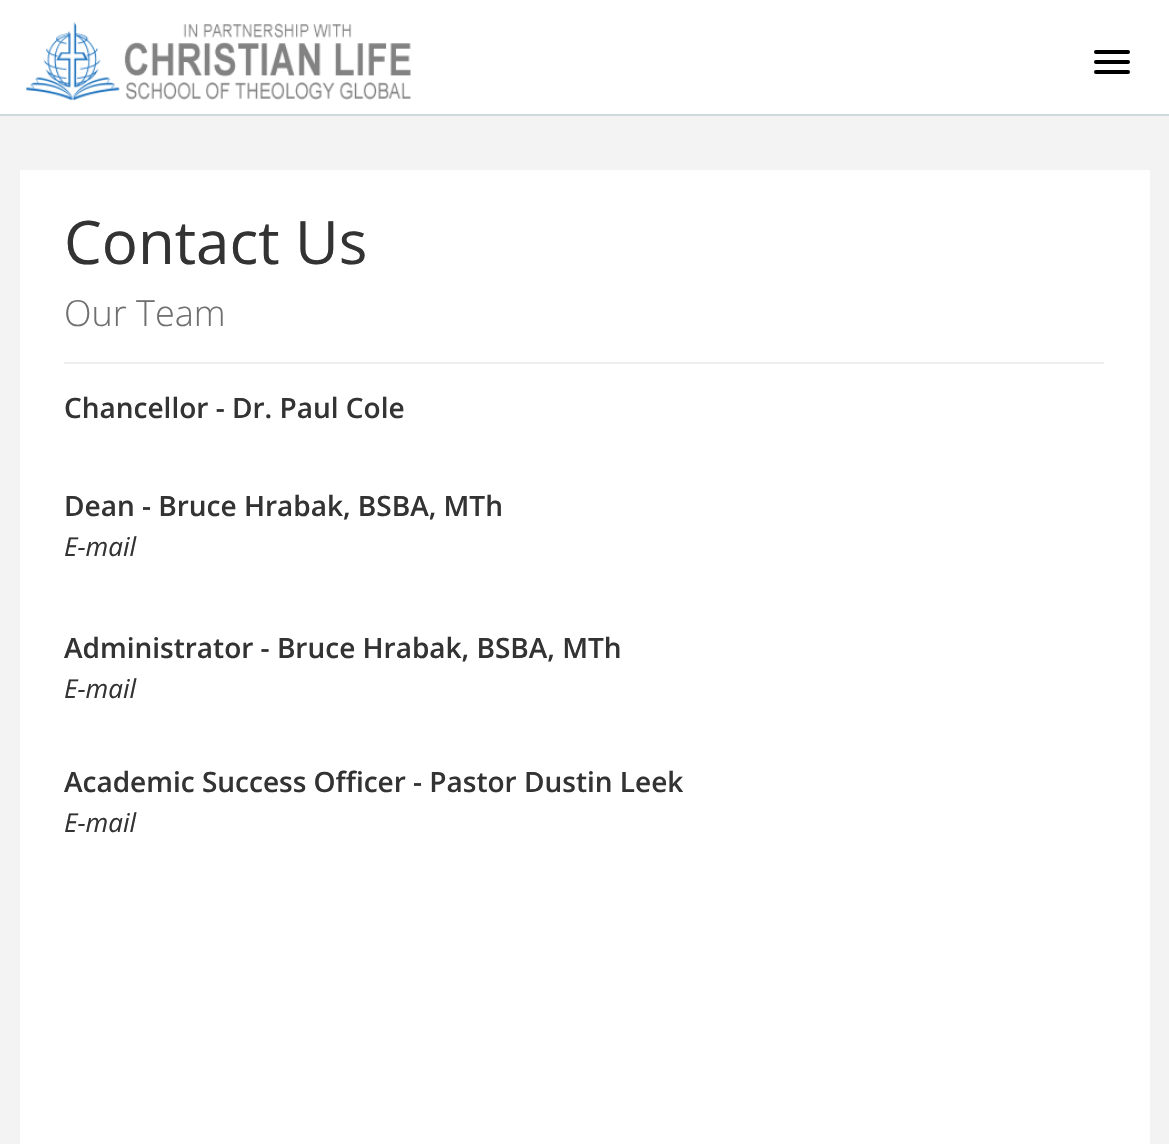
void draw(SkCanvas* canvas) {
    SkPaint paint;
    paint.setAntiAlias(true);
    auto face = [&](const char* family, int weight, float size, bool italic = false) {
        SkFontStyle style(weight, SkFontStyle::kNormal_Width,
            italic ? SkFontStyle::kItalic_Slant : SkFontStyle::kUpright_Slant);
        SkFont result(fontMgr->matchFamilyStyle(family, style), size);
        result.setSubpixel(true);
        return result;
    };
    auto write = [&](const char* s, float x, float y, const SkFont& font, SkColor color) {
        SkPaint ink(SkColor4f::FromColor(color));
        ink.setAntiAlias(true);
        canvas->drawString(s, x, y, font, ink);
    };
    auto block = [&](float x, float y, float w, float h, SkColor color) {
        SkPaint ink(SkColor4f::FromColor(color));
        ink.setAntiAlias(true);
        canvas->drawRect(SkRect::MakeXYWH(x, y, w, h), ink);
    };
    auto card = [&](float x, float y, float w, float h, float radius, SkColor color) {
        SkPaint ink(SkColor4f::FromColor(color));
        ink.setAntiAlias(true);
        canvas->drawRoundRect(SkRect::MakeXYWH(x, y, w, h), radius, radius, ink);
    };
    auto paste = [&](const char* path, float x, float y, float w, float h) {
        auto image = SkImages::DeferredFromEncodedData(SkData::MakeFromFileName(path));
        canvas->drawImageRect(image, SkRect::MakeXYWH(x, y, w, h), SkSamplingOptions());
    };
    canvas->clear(SkColorSetRGB(243, 243, 243));
    block(0, 0, 1169, 114, SK_ColorWHITE);
    block(0, 114, 1169, 2, SkColorSetRGB(207, 216, 220));
    paste("pic1.png", 26, 22, 385, 79);
    card(1094, 50, 36, 4, 2, SK_ColorBLACK);
    card(1094, 60, 36, 4, 2, SK_ColorBLACK);
    card(1094, 70, 36, 4, 2, SK_ColorBLACK);
    block(20, 170, 1130, 974, SK_ColorWHITE);
    auto kFont1 = face("Open Sans", 400, 60);
    write("Contact Us", 64, 264, kFont1, SkColorSetRGB(51, 51, 51));
    auto kFont2 = face("Open Sans", 300, 36);
    write("Our Team", 64, 326, kFont2, SkColorSetRGB(112, 112, 112));
    block(64, 362, 1040, 2, SkColorSetRGB(238, 238, 238));
    auto kFont3 = face("Open Sans", 600, 28);
    write("Chancellor - Dr. Paul Cole", 64, 418, kFont3, SkColorSetRGB(51, 51, 51));
    write("Dean - Bruce Hrabak, BSBA, MTh", 64, 516, kFont3, SkColorSetRGB(51, 51, 51));
    auto kFont4 = face("Open Sans", 400, 26, true);
    write("E-mail", 64, 556, kFont4, SkColorSetRGB(51, 51, 51));
    write("Administrator - Bruce Hrabak, BSBA, MTh", 64, 658, kFont3, SkColorSetRGB(51, 51, 51));
    write("E-mail", 64, 698, kFont4, SkColorSetRGB(51, 51, 51));
    write("Academic Success Officer - Pastor Dustin Leek", 64, 792, kFont3, SkColorSetRGB(51, 51, 51));
    write("E-mail", 64, 832, kFont4, SkColorSetRGB(51, 51, 51));
}
